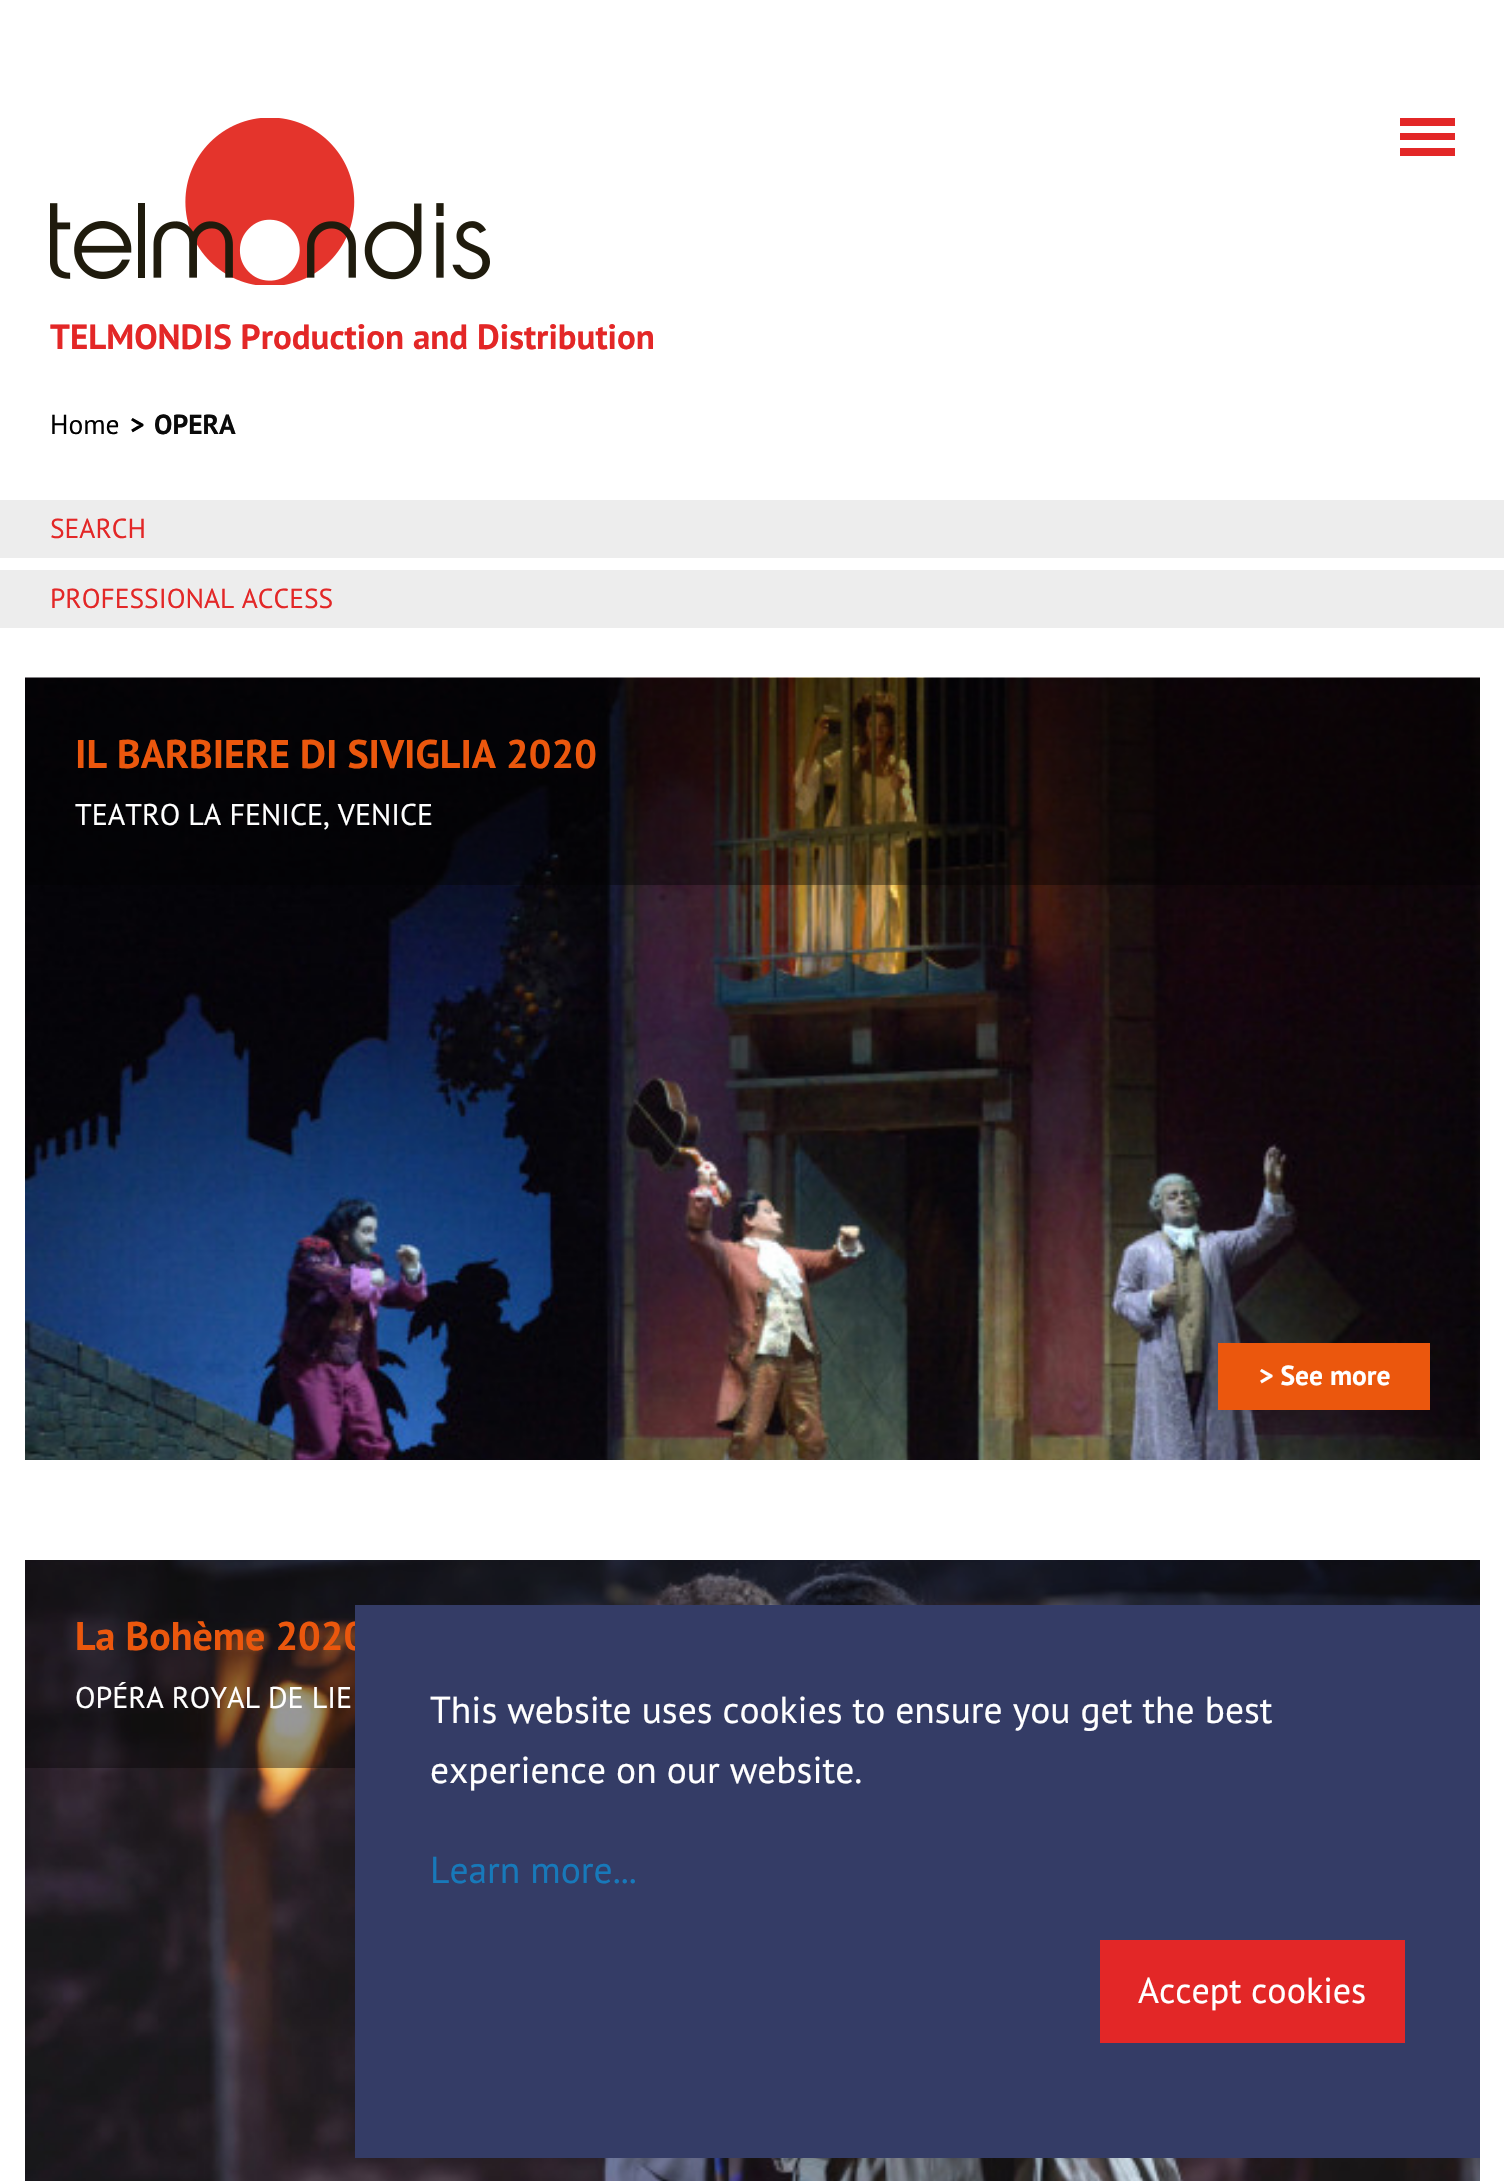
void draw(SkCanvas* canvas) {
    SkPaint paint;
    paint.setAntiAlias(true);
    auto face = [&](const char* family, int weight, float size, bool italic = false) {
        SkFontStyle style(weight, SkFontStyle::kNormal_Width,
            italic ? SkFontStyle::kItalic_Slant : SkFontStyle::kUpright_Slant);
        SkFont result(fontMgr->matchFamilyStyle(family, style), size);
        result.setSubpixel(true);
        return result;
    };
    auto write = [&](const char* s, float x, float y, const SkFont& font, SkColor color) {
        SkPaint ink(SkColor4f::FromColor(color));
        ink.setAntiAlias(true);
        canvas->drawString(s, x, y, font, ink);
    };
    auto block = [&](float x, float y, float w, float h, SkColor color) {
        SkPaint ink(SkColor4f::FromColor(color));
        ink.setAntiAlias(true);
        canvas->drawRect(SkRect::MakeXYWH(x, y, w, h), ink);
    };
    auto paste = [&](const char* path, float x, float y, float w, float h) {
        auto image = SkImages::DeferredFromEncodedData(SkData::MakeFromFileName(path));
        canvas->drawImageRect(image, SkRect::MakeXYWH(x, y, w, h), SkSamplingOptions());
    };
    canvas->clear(SK_ColorWHITE);
    block(1400, 133, 55, 7, SkColorSetRGB(227, 39, 39));
    block(1400, 118, 55, 8, SkColorSetRGB(227, 39, 39));
    block(1400, 148, 55, 8, SkColorSetRGB(227, 39, 39));
    paste("pic1.png", 50, 118, 440, 167);
    auto kFont1 = face("PT Sans", 700, 35);
    write("TELMONDIS Production and Distribution", 50, 349, kFont1, SkColorSetRGB(227, 39, 39));
    auto kFont2 = face("PT Sans", 400, 27.5f);
    write("Home", 50, 434, kFont2, SK_ColorBLACK);
    auto kFont3 = face("PT Sans", 700, 27.5f);
    write(">", 130, 434, kFont3, SK_ColorBLACK);
    write("OPERA", 154, 434, kFont3, SkColorSetRGB(10, 10, 10));
    block(0, 500, 1504, 58, SkColorSetRGB(237, 237, 237));
    write("SEARCH", 50, 538, kFont2, SkColorSetRGB(227, 39, 39));
    block(0, 570, 1504, 58, SkColorSetRGB(237, 237, 237));
    write("PROFESSIONAL ACCESS", 50, 608, kFont2, SkColorSetRGB(227, 39, 39));
    paste("pic2.png", 25, 677, 1455, 783);
    block(25, 678, 1455, 207, SkColorSetARGB(102, 0, 0, 0));
    auto kFont4 = face("PT Sans", 700, 40);
    write("IL BARBIERE DI SIVIGLIA 2020", 75, 768, kFont4, SkColorSetRGB(235, 87, 13));
    auto kFont5 = face("PT Sans", 400, 30);
    write("TEATRO LA FENICE, VENICE", 75, 825, kFont5, SK_ColorWHITE);
    block(1218, 1343, 212, 67, SkColorSetRGB(235, 87, 13));
    write("> See more", 1259, 1385, kFont3, SK_ColorWHITE);
    paste("pic3.png", 25, 1560, 1455, 621);
    block(25, 1560, 1455, 208, SkColorSetARGB(102, 0, 0, 0));
    write("La Bohème 2020", 75, 1650, kFont4, SkColorSetRGB(235, 87, 13));
    write("OPÉRA ROYAL DE LIE", 75, 1708, kFont5, SK_ColorWHITE);
    block(355, 1605, 1125, 553, SkColorSetRGB(52, 60, 102));
    auto kFont6 = face("PT Sans", 400, 37.5f);
    write("This website uses cookies to ensure you get the best", 430, 1723, kFont6, SK_ColorWHITE);
    write("experience on our website.", 430, 1783, kFont6, SK_ColorWHITE);
    write("Learn more...", 430, 1883, kFont6, SkColorSetRGB(23, 121, 186));
    block(1100, 1940, 305, 103, SkColorSetRGB(227, 39, 39));
    auto kFont7 = face("PT Sans", 400, 36);
    write("Accept cookies", 1138, 2003, kFont7, SK_ColorWHITE);
}
